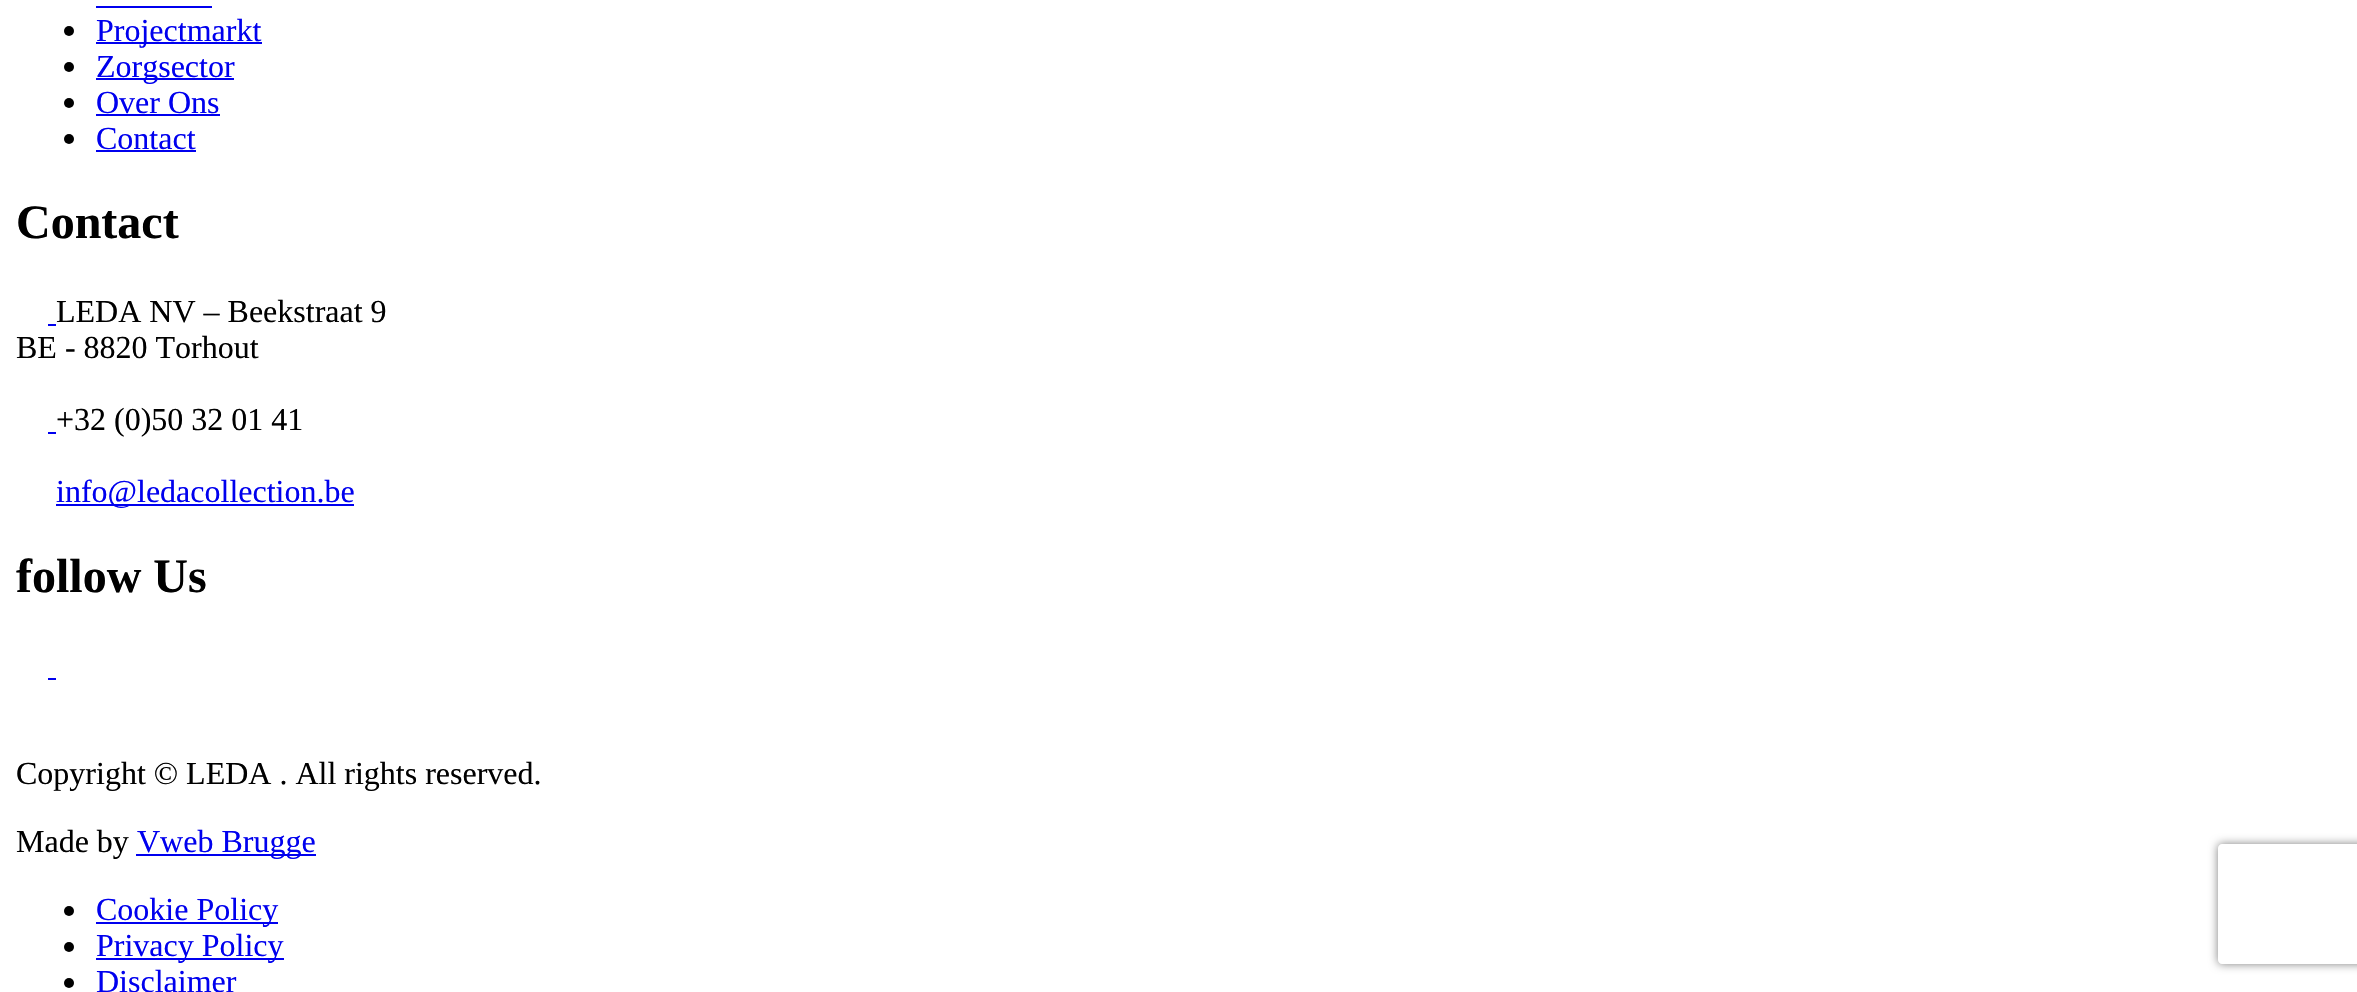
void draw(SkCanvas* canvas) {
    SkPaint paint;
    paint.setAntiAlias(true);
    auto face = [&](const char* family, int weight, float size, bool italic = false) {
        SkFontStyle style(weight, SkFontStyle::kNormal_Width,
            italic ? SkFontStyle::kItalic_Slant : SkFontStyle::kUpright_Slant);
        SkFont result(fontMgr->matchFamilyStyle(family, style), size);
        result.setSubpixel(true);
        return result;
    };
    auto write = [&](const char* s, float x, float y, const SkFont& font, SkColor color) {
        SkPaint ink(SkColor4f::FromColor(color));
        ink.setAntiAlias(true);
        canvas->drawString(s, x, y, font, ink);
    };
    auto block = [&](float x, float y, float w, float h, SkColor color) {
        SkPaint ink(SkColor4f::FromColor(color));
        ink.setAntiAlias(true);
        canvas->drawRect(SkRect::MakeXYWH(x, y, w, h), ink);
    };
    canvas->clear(SK_ColorWHITE);
    block(96, 6, 116, 2, SkColorSetRGB(0, 0, 238));
    paint.setColor(SK_ColorBLACK);
    canvas->drawCircle(69, 31, 5, paint);
    block(96, 42, 166, 2, SkColorSetRGB(0, 0, 238));
    auto kFont1 = face("Liberation Serif", 400, 32);
    write("Projectmarkt", 96, 41, kFont1, SkColorSetRGB(0, 0, 238));
    canvas->drawCircle(69, 67, 5, paint);
    block(96, 78, 138, 2, SkColorSetRGB(0, 0, 238));
    write("Zorgsector", 96, 77, kFont1, SkColorSetRGB(0, 0, 238));
    canvas->drawCircle(69, 103, 5, paint);
    write("Over Ons", 96, 113, kFont1, SkColorSetRGB(0, 0, 238));
    block(96, 114, 124, 2, SkColorSetRGB(0, 0, 238));
    canvas->drawCircle(69, 139, 5, paint);
    write("Contact", 96, 149, kFont1, SkColorSetRGB(0, 0, 238));
    block(96, 150, 100, 2, SkColorSetRGB(0, 0, 238));
    auto kFont2 = face("Liberation Serif", 700, 48);
    write("Contact", 16, 238, kFont2, SK_ColorBLACK);
    write("LEDA NV – Beekstraat 9", 56, 322, kFont1, SK_ColorBLACK);
    block(48, 324, 8, 2, SkColorSetRGB(0, 0, 238));
    write("BE - 8820 Torhout", 16, 358, kFont1, SK_ColorBLACK);
    block(48, 432, 8, 2, SkColorSetRGB(0, 0, 238));
    write("+32 (0)50 32 01 41", 56, 430, kFont1, SK_ColorBLACK);
    block(56, 504, 298, 2, SkColorSetRGB(0, 0, 238));
    write("info@ledacollection.be", 56, 502, kFont1, SkColorSetRGB(0, 0, 238));
    write("follow Us", 16, 592, kFont2, SK_ColorBLACK);
    block(48, 678, 8, 2, SkColorSetRGB(0, 0, 238));
    write("Copyright © LEDA . All rights reserved.", 16, 784, kFont1, SK_ColorBLACK);
    write("Made by", 16, 852, kFont1, SK_ColorBLACK);
    block(136, 854, 180, 2, SkColorSetRGB(0, 0, 238));
    write("Vweb Brugge", 137, 852, kFont1, SkColorSetRGB(0, 0, 238));
    canvas->drawCircle(69, 911, 5, paint);
    block(96, 922, 182, 2, SkColorSetRGB(0, 0, 238));
    write("Cookie Policy", 96, 920, kFont1, SkColorSetRGB(0, 0, 238));
    canvas->drawCircle(69, 947, 5, paint);
    block(96, 958, 188, 2, SkColorSetRGB(0, 0, 238));
    write("Privacy Policy", 96, 956, kFont1, SkColorSetRGB(0, 0, 238));
    canvas->drawCircle(69, 983, 5, paint);
    write("Disclaimer", 96, 992, kFont1, SkColorSetRGB(0, 0, 238));
    canvas->save();
    canvas->clipPath(SkPathBuilder(SkPathFillType::kEvenOdd).moveTo(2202, 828).lineTo(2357, 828).lineTo(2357, 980).lineTo(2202, 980).close().moveTo(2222, 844).lineTo(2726, 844).cubicTo(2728, 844, 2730, 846, 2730, 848).lineTo(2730, 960).cubicTo(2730, 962, 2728, 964, 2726, 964).lineTo(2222, 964).cubicTo(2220, 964, 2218, 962, 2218, 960).lineTo(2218, 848).cubicTo(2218, 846, 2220, 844, 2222, 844).close().detach(), true);
    paint.setColor(SkColorSetRGB(128, 128, 128));
    paint.setMaskFilter(SkMaskFilter::MakeBlur(kNormal_SkBlurStyle, 5));
    canvas->drawRoundRect(SkRect::MakeXYWH(2218, 844, 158, 120), 4, 4, paint);
    paint.setMaskFilter(nullptr);
    canvas->restore();
}
